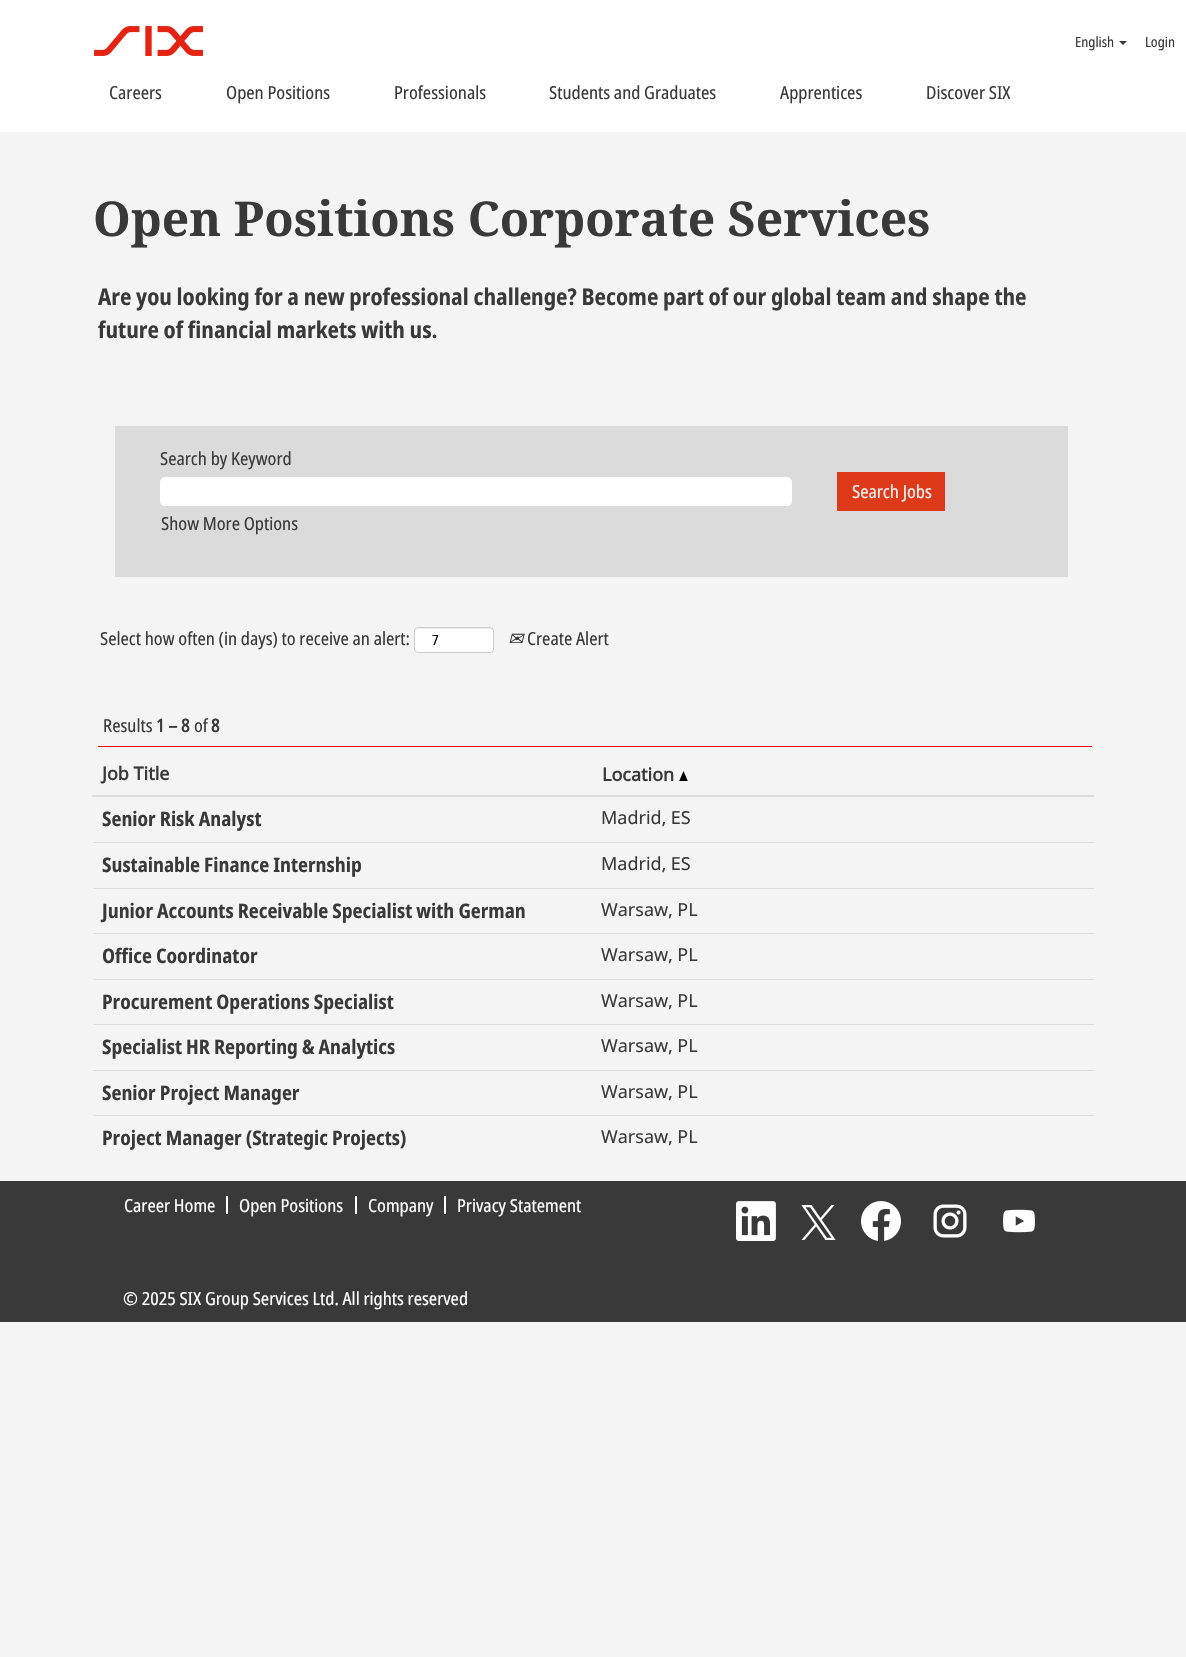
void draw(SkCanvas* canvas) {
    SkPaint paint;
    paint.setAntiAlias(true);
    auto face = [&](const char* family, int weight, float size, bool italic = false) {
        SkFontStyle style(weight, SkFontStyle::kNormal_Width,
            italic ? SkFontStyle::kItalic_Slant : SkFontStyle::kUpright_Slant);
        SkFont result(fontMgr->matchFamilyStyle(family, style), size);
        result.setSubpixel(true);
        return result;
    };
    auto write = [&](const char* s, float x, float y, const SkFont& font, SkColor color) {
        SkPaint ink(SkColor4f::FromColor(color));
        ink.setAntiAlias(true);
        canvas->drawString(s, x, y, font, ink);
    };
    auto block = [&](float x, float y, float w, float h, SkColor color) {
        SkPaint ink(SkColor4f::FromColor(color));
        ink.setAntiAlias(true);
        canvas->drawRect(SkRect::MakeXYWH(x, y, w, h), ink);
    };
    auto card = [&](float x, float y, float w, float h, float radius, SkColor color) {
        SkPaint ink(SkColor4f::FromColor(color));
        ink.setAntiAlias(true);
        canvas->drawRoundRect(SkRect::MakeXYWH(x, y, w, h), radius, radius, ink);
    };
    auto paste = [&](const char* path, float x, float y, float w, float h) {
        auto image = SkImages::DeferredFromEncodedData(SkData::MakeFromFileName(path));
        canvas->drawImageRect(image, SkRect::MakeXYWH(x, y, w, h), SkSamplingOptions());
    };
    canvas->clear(SkColorSetRGB(244, 244, 244));
    block(0, 0, 1186, 132, SK_ColorWHITE);
    paste("pic1.png", 94, 26, 109, 30);
    auto kFont1 = face("Noto Sans", 400, 14);
    write("English", 1075, 47, kFont1, SkColorSetRGB(57, 57, 57));
    paint.setColor(SkColorSetRGB(57, 57, 57));
    canvas->drawPath(SkPathBuilder().moveTo(1119, 41).lineTo(1127, 41).lineTo(1123, 45).close().detach(), paint);
    write("Login", 1145, 47, kFont1, SkColorSetRGB(57, 57, 57));
    auto kFont2 = face("Noto Sans", 400, 18);
    write("Careers", 109, 99, kFont2, SkColorSetRGB(57, 57, 57));
    write("Open Positions", 226, 99, kFont2, SkColorSetRGB(57, 57, 57));
    write("Professionals", 394, 99, kFont2, SkColorSetRGB(57, 57, 57));
    write("Students and Graduates", 549, 99, kFont2, SkColorSetRGB(57, 57, 57));
    write("Apprentices", 780, 99, kFont2, SkColorSetRGB(57, 57, 57));
    write("Discover SIX", 926, 99, kFont2, SkColorSetRGB(57, 57, 57));
    auto kFont3 = face("Noto Serif", 700, 48);
    write("Open Positions Corporate Services", 93, 236, kFont3, SkColorSetRGB(57, 57, 57));
    auto kFont4 = face("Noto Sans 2", 700, 23);
    write("Are you looking for a new professional challenge? Become part of our global team and shape the", 98, 305, kFont4, SkColorSetRGB(57, 57, 57));
    write("future of financial markets with us.", 98, 338, kFont4, SkColorSetRGB(57, 57, 57));
    block(115, 426, 953, 151, SkColorSetRGB(219, 219, 219));
    write("Search by Keyword", 160, 465, kFont2, SkColorSetRGB(57, 57, 57));
    card(160, 477, 632, 29, 5, SK_ColorWHITE);
    write("Show More Options", 161, 530, kFont2, SkColorSetRGB(57, 57, 57));
    block(837, 472, 108, 39, SkColorSetRGB(222, 57, 25));
    write("Search Jobs", 852, 498, kFont2, SkColorSetRGB(244, 244, 244));
    write("Select how often (in days) to receive an alert:", 100, 645, kFont2, SkColorSetRGB(57, 57, 57));
    card(414, 627, 80, 26, 4, SK_ColorWHITE);
    paint.setColor(SkColorSetRGB(236, 236, 236));
    canvas->drawPath(SkPathBuilder().moveTo(418, 629).lineTo(490, 629).cubicTo(492, 629, 493, 630, 493, 632).cubicTo(493, 625, 482, 628, 478, 628).lineTo(430, 628).cubicTo(426, 628, 415, 625, 415, 632).cubicTo(415, 630, 416, 629, 418, 629).close().detach(), paint);
    paint.setStyle(SkPaint::kStroke_Style);
    paint.setStrokeWidth(1);
    paint.setColor(SkColorSetRGB(204, 204, 204));
    canvas->drawRoundRect(SkRect::MakeXYWH(414.5f, 627.5f, 79, 25), 3.5f, 3.5f, paint);
    write("7", 432, 645, kFont1, SK_ColorBLACK);
    auto kFont5 = face("DejaVu Sans", 400, 18, true);
    write("✉", 508, 645, kFont5, SkColorSetRGB(57, 57, 57));
    write("Create Alert", 527, 645, kFont2, SkColorSetRGB(57, 57, 57));
    block(98, 746, 994, 1, SkColorSetRGB(255, 0, 0));
    write("Results", 103, 732, kFont2, SkColorSetRGB(57, 57, 57));
    auto kFont6 = face("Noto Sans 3", 700, 18);
    write("1 – 8", 156, 732, kFont6, SkColorSetRGB(57, 57, 57));
    write("of", 194, 732, kFont2, SkColorSetRGB(57, 57, 57));
    write("8", 211, 732, kFont6, SkColorSetRGB(57, 57, 57));
    auto kFont7 = face("Noto Sans", 700, 18);
    write("Job Title", 102, 780, kFont7, SkColorSetRGB(57, 57, 57));
    block(92, 795, 1002, 2, SkColorSetRGB(221, 221, 221));
    write("Location", 602, 781, kFont7, SkColorSetRGB(57, 57, 57));
    paste("pic2.png", 679, 771, 9, 10);
    auto kFont8 = face("Noto Sans 2", 700, 20);
    write("Senior Risk Analyst", 102, 826, kFont8, SkColorSetRGB(57, 57, 57));
    auto kFont9 = face("Noto Sans 2", 400, 18);
    write("Madrid, ES", 601, 824, kFont9, SkColorSetRGB(57, 57, 57));
    write("Sustainable Finance Internship", 102, 872, kFont8, SkColorSetRGB(57, 57, 57));
    block(93, 842, 1001, 1, SkColorSetRGB(221, 221, 221));
    write("Madrid, ES", 601, 870, kFont9, SkColorSetRGB(57, 57, 57));
    write("Junior Accounts Receivable Specialist with German", 102, 918, kFont8, SkColorSetRGB(57, 57, 57));
    block(93, 888, 1001, 1, SkColorSetRGB(221, 221, 221));
    write("Warsaw, PL", 601, 916, kFont9, SkColorSetRGB(57, 57, 57));
    write("Office Coordinator", 102, 963, kFont8, SkColorSetRGB(57, 57, 57));
    block(93, 933, 1001, 1, SkColorSetRGB(221, 221, 221));
    write("Warsaw, PL", 601, 961, kFont9, SkColorSetRGB(57, 57, 57));
    write("Procurement Operations Specialist", 102, 1009, kFont8, SkColorSetRGB(57, 57, 57));
    block(93, 979, 1001, 1, SkColorSetRGB(221, 221, 221));
    write("Warsaw, PL", 601, 1007, kFont9, SkColorSetRGB(57, 57, 57));
    write("Specialist HR Reporting & Analytics", 102, 1054, kFont8, SkColorSetRGB(57, 57, 57));
    block(93, 1024, 1001, 1, SkColorSetRGB(221, 221, 221));
    write("Warsaw, PL", 601, 1052, kFont9, SkColorSetRGB(57, 57, 57));
    write("Senior Project Manager", 102, 1100, kFont8, SkColorSetRGB(57, 57, 57));
    block(93, 1070, 1001, 1, SkColorSetRGB(221, 221, 221));
    write("Warsaw, PL", 601, 1098, kFont9, SkColorSetRGB(57, 57, 57));
    write("Project Manager (Strategic Projects)", 102, 1145, kFont8, SkColorSetRGB(57, 57, 57));
    block(93, 1115, 1001, 1, SkColorSetRGB(221, 221, 221));
    write("Warsaw, PL", 601, 1143, kFont9, SkColorSetRGB(57, 57, 57));
    block(0, 1181, 1186, 141, SkColorSetRGB(57, 57, 57));
    block(226, 1196, 2, 18, SK_ColorWHITE);
    write("Career Home", 124, 1212, kFont2, SK_ColorWHITE);
    block(355, 1196, 2, 18, SK_ColorWHITE);
    write("Open Positions", 239, 1212, kFont2, SK_ColorWHITE);
    block(444, 1196, 2, 18, SK_ColorWHITE);
    write("Company", 368, 1212, kFont2, SK_ColorWHITE);
    write("Privacy Statement", 457, 1212, kFont2, SK_ColorWHITE);
    paste("pic3.png", 736, 1201, 40, 40);
    paste("pic4.png", 801, 1205, 35, 35);
    paste("pic5.png", 861, 1201, 40, 40);
    paste("pic6.png", 933, 1204, 34, 34);
    paste("pic7.png", 1003, 1209, 32, 24);
    write("© 2025 SIX Group Services Ltd. All rights reserved", 123, 1305, kFont2, SK_ColorWHITE);
}
